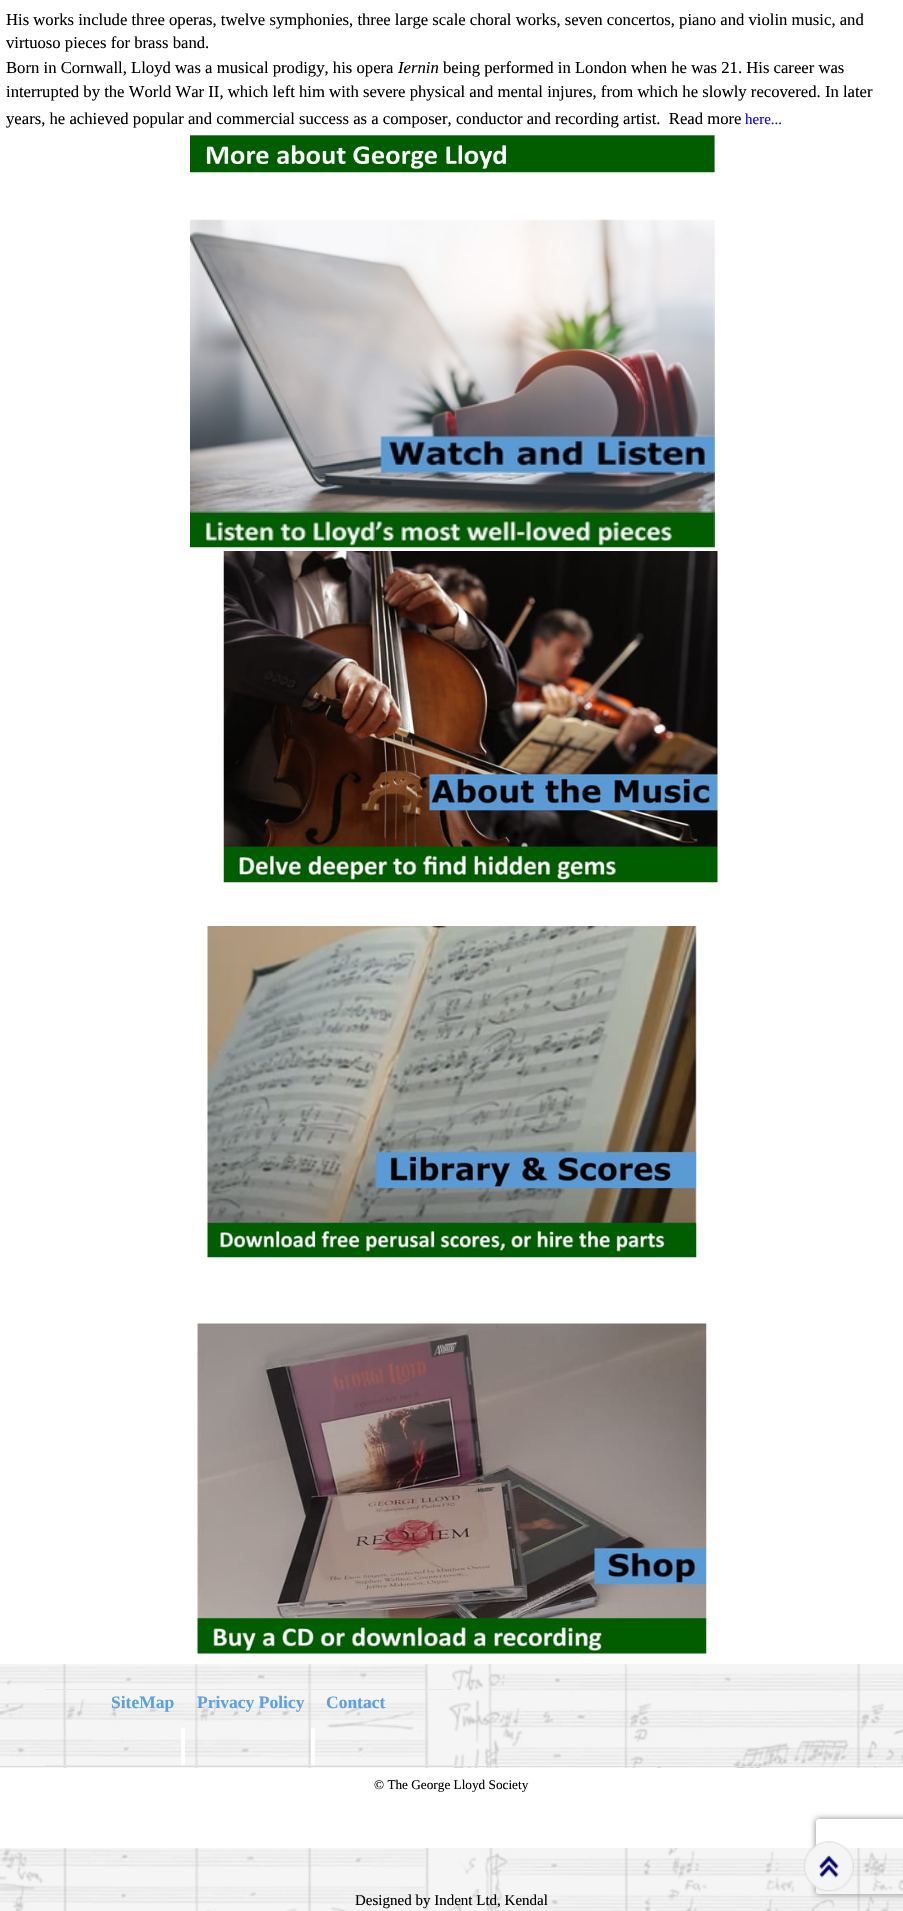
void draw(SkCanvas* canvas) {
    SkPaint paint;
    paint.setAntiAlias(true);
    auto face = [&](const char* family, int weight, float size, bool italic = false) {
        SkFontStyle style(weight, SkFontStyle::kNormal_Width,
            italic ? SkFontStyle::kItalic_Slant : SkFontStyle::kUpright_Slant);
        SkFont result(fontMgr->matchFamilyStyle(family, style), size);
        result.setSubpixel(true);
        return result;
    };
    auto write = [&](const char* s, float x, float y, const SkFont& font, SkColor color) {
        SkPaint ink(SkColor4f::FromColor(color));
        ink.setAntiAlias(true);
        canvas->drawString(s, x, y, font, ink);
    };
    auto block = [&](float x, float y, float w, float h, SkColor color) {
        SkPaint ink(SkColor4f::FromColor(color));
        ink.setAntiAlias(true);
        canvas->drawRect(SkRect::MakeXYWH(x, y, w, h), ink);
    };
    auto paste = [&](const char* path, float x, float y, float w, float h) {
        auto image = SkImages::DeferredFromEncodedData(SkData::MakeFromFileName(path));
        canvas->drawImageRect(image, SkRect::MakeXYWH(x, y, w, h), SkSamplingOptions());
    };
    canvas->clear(SkColorSetRGB(225, 225, 225));
    paste("pic1.png", 0, 1664, 903, 247);
    block(0, 0, 903, 1664, SK_ColorWHITE);
    auto kFont1 = face("Liberation Serif", 400, 16.67f);
    write("His works include three operas, twelve symphonies, three large scale choral works, seven concertos, piano and violin music, and", 6, 25, kFont1, SK_ColorBLACK);
    write("virtuoso pieces for brass band.", 6, 48, kFont1, SK_ColorBLACK);
    write("Born in Cornwall, Lloyd was a musical prodigy, his opera", 6, 73, kFont1, SK_ColorBLACK);
    auto kFont2 = face("Liberation Serif", 400, 16.67f, true);
    write("Iernin", 398, 73, kFont2, SK_ColorBLACK);
    write("being performed in London when he was 21. His career was", 443, 73, kFont1, SK_ColorBLACK);
    write("interrupted by the World War II, which left him with severe physical and mental injures, from which he slowly recovered. In later", 6, 97, kFont1, SK_ColorBLACK);
    write("years, he achieved popular and commercial success as a composer, conductor and recording artist.  Read more", 6, 124, kFont1, SK_ColorBLACK);
    auto kFont3 = face("Liberation Serif", 400, 15);
    write("here...", 745, 124, kFont3, SkColorSetRGB(0, 0, 255));
    paste("pic2.png", 190, 135, 525, 38);
    paste("pic3.png", 190, 219, 525, 329);
    paste("pic4.png", 223, 551, 495, 332);
    paste("pic5.png", 207, 926, 490, 332);
    paste("pic6.png", 197, 1323, 510, 331);
    block(45, 1689, 408, 1, SkColorSetRGB(231, 231, 231));
    block(45, 1765, 408, 1, SkColorSetRGB(231, 231, 231));
    auto kFont4 = face("Liberation Serif", 700, 17.5f);
    write("SiteMap", 111, 1708, kFont4, SkColorSetRGB(93, 162, 222));
    block(181, 1728, 4, 37, SK_ColorWHITE);
    write("Privacy Policy", 197, 1708, kFont4, SkColorSetRGB(93, 162, 222));
    block(311, 1728, 4, 37, SK_ColorWHITE);
    write("Contact", 326, 1708, kFont4, SkColorSetRGB(93, 162, 222));
    block(0, 1768, 903, 80, SK_ColorWHITE);
    block(0, 1766, 903, 1, SkColorSetRGB(220, 220, 220));
    auto kFont5 = face("Liberation Serif", 400, 13.25f);
    write("© The George Lloyd Society", 374, 1789, kFont5, SK_ColorBLACK);
    write("Designed by Indent Ltd, Kendal", 355, 1905, kFont3, SK_ColorBLACK);
    canvas->save();
    canvas->clipPath(SkPathBuilder(SkPathFillType::kEvenOdd).moveTo(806, 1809).lineTo(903, 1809).lineTo(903, 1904).lineTo(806, 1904).close().moveTo(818.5f, 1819).lineTo(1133.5f, 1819).cubicTo(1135, 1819, 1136, 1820, 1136, 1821.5f).lineTo(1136, 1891.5f).cubicTo(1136, 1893, 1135, 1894, 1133.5f, 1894).lineTo(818.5f, 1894).cubicTo(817, 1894, 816, 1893, 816, 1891.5f).lineTo(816, 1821.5f).cubicTo(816, 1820, 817, 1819, 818.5f, 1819).close().detach(), true);
    paint.setColor(SkColorSetRGB(128, 128, 128));
    paint.setMaskFilter(SkMaskFilter::MakeBlur(kNormal_SkBlurStyle, 3));
    canvas->drawRoundRect(SkRect::MakeXYWH(816, 1819, 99, 75), 2.5f, 2.5f, paint);
    paint.setMaskFilter(nullptr);
    canvas->restore();
    paste("pic7.png", 803, 1841, 51, 51);
}
